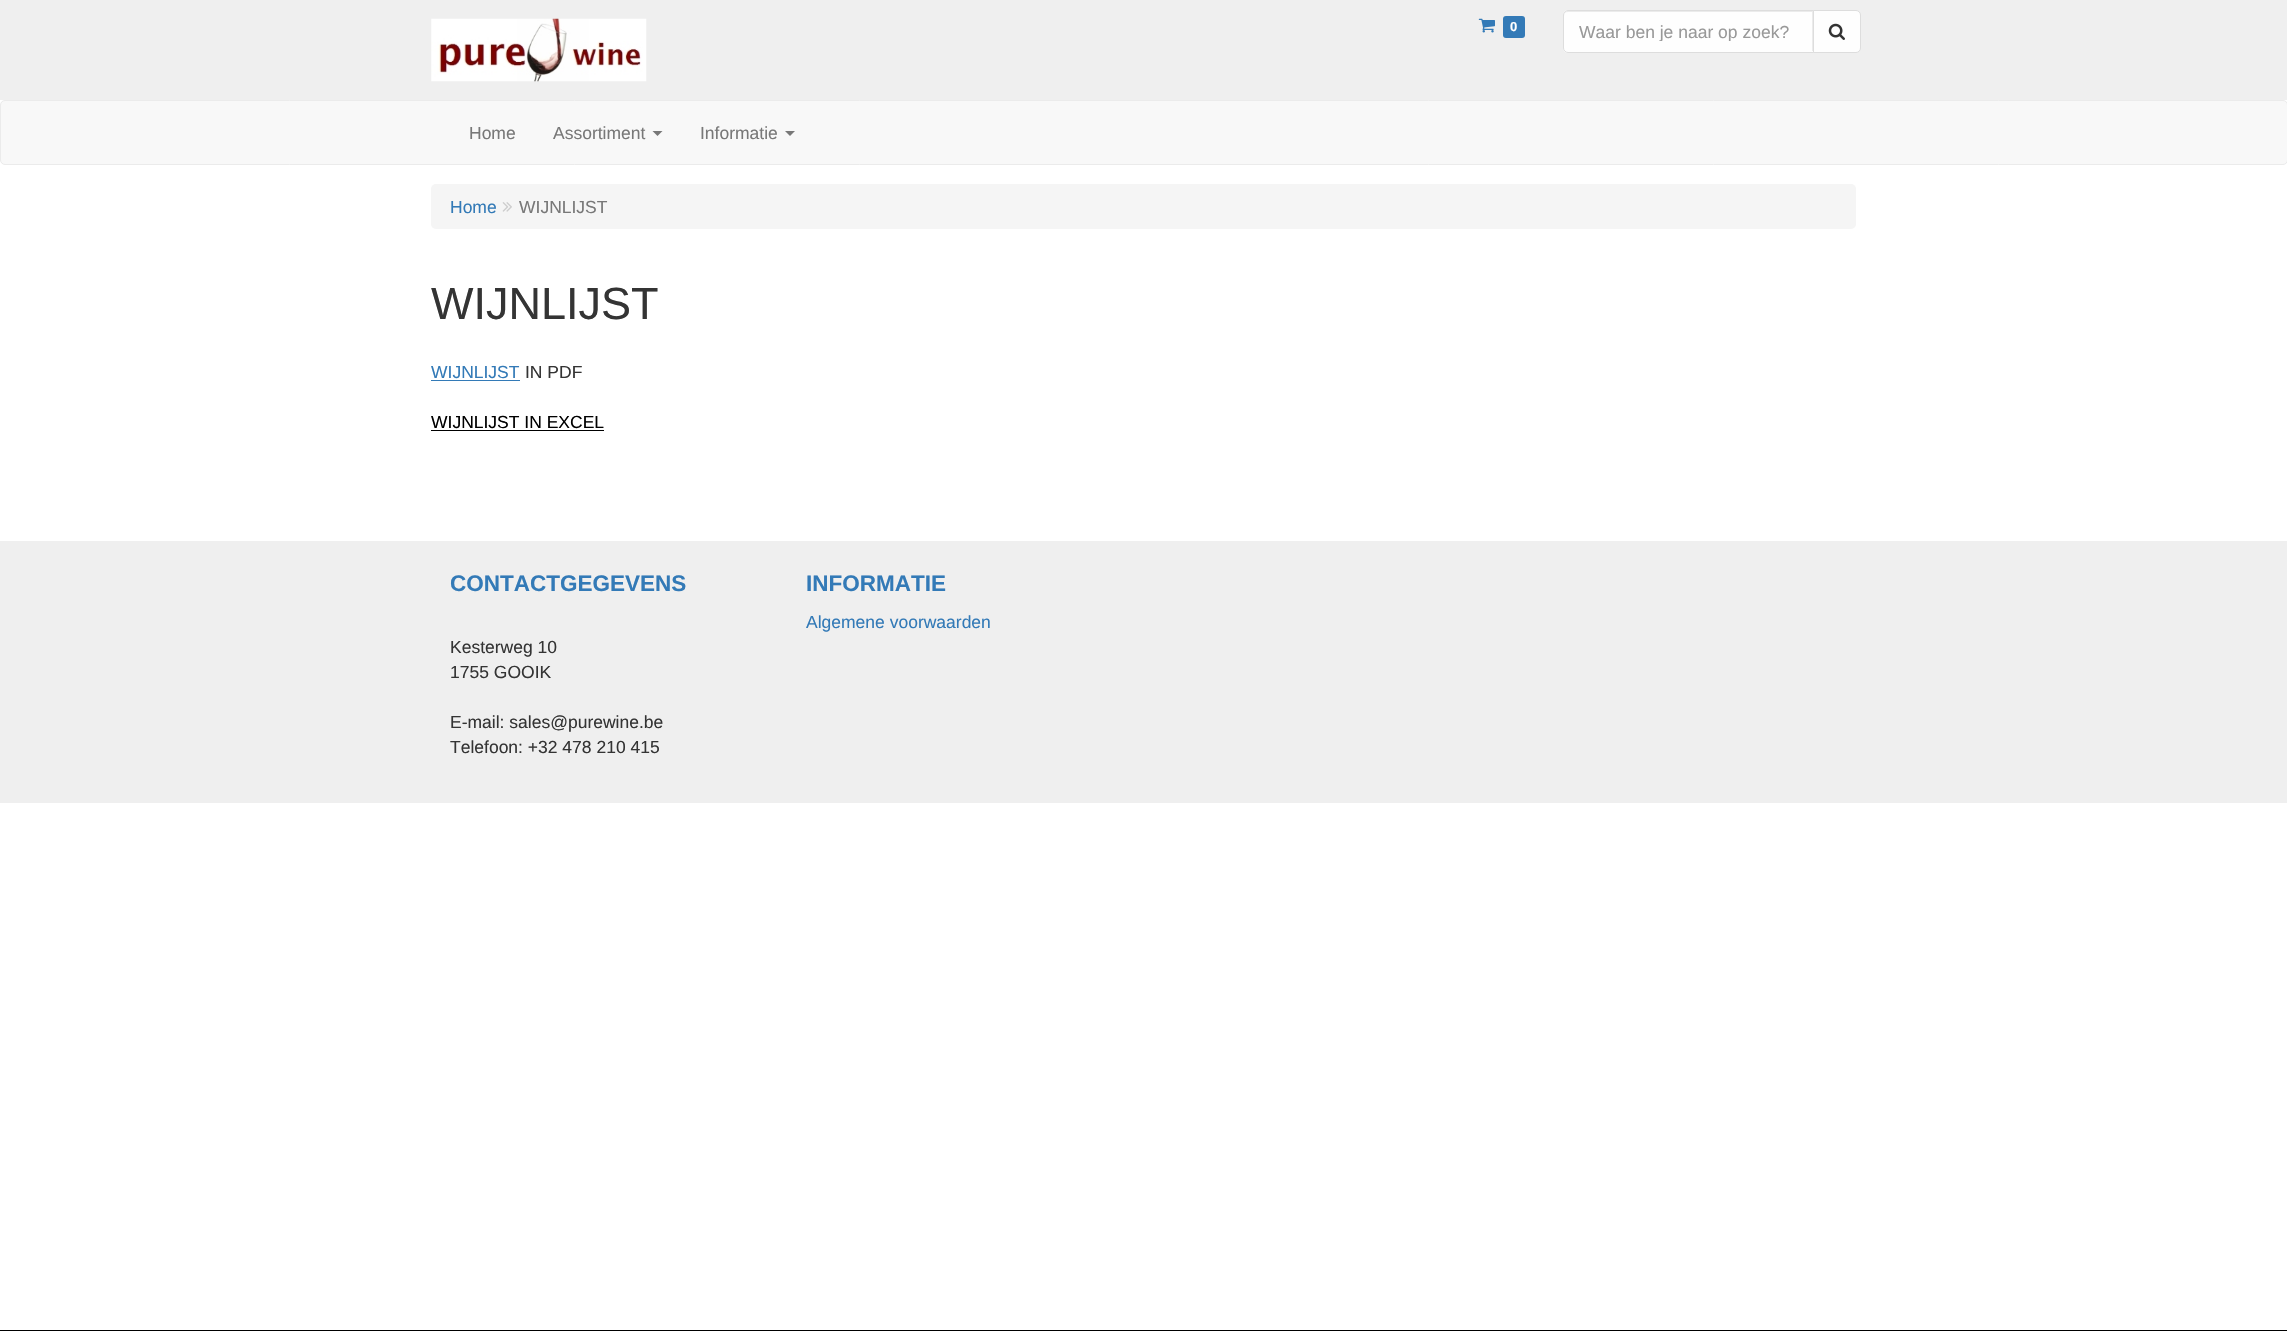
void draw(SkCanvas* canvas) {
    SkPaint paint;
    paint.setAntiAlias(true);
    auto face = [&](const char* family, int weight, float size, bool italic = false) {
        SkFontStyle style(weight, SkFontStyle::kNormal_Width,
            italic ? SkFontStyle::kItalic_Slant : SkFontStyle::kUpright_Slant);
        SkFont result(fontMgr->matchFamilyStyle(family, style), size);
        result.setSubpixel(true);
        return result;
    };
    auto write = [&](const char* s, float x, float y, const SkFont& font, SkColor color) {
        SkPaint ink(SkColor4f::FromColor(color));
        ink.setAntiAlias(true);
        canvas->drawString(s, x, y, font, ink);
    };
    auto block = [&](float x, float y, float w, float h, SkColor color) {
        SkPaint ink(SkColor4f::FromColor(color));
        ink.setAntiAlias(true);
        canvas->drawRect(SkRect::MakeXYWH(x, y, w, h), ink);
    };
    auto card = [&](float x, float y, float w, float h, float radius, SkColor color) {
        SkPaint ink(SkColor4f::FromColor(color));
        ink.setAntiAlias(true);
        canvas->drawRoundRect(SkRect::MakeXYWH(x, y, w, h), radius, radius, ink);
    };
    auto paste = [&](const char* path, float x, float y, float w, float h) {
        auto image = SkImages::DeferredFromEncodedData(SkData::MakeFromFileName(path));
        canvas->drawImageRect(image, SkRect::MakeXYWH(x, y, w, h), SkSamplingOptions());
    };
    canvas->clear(SK_ColorWHITE);
    block(0, 0, 2287, 100, SkColorSetRGB(239, 239, 239));
    paste("pic1.png", 431, 18, 216, 64);
    paste("pic2.png", 1478, 18, 17, 15);
    card(1503, 16, 22, 22, 3, SkColorSetRGB(51, 122, 183));
    auto kFont1 = face("Liberation Sans", 700, 13);
    write("0", 1510, 31, kFont1, SK_ColorWHITE);
    paint.setColor(SkColorSetRGB(254, 254, 254));
    canvas->drawPath(SkPathBuilder().moveTo(1568, 10).lineTo(1814, 10).lineTo(1814, 53).lineTo(1568, 53).cubicTo(1565, 53, 1563, 51, 1563, 48).lineTo(1563, 15).cubicTo(1563, 12, 1565, 10, 1568, 10).close().detach(), paint);
    paint.setColor(SkColorSetRGB(235, 235, 235));
    canvas->drawPath(SkPathBuilder().moveTo(1568, 12).lineTo(1812, 12).lineTo(1812, 51).lineTo(1813, 51).lineTo(1813, 11).lineTo(1568, 11).cubicTo(1566, 11, 1564, 13, 1564, 15).lineTo(1564, 16).cubicTo(1564, 14, 1565, 12, 1568, 12).close().detach(), paint);
    paint.setStyle(SkPaint::kStroke_Style);
    paint.setStrokeWidth(1);
    paint.setColor(SkColorSetRGB(221, 221, 221));
    canvas->drawPath(SkPathBuilder().moveTo(1568, 10.5f).lineTo(1813.5f, 10.5f).lineTo(1813.5f, 52.5f).lineTo(1568, 52.5f).cubicTo(1565.5f, 52.5f, 1563.5f, 50.5f, 1563.5f, 48).lineTo(1563.5f, 15).cubicTo(1563.5f, 12.5f, 1565.5f, 10.5f, 1568, 10.5f).close().detach(), paint);
    canvas->save();
    canvas->clipRect(SkRect::MakeXYWH(1579, 21, 221, 20));
    auto kFont2 = face("Liberation Sans", 400, 17.5f);
    write("Waar ben je naar op zoek?", 1579, 38, kFont2, SkColorSetRGB(153, 153, 153));
    canvas->restore();
    paint.setStyle(SkPaint::kFill_Style);
    paint.setColor(SkColorSetRGB(254, 254, 254));
    canvas->drawPath(SkPathBuilder().moveTo(1813.5f, 10.5f).lineTo(1856, 10.5f).cubicTo(1858.5f, 10.5f, 1860.5f, 12.5f, 1860.5f, 15).lineTo(1860.5f, 48).cubicTo(1860.5f, 50.5f, 1858.5f, 52.5f, 1856, 52.5f).lineTo(1813.5f, 52.5f).close().detach(), paint);
    paint.setStyle(SkPaint::kStroke_Style);
    paint.setColor(SkColorSetRGB(221, 221, 221));
    canvas->drawPath(SkPathBuilder().moveTo(1813.5f, 10.5f).lineTo(1856, 10.5f).cubicTo(1858.5f, 10.5f, 1860.5f, 12.5f, 1860.5f, 15).lineTo(1860.5f, 48).cubicTo(1860.5f, 50.5f, 1858.5f, 52.5f, 1856, 52.5f).lineTo(1813.5f, 52.5f).close().detach(), paint);
    paste("pic3.png", 1828, 23, 17, 17);
    paint.setStyle(SkPaint::kFill_Style);
    paint.setColor(SkColorSetRGB(248, 248, 248));
    canvas->drawRoundRect(SkRect::MakeXYWH(0.5f, 100.5f, 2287, 64), 4.5f, 4.5f, paint);
    paint.setStyle(SkPaint::kStroke_Style);
    paint.setColor(SkColorSetRGB(235, 235, 235));
    canvas->drawRoundRect(SkRect::MakeXYWH(0.5f, 100.5f, 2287, 64), 4.5f, 4.5f, paint);
    write("Home", 469, 139, kFont2, SkColorSetRGB(120, 120, 120));
    write("Assortiment", 553, 139, kFont2, SkColorSetRGB(120, 120, 120));
    paint.setStyle(SkPaint::kFill_Style);
    paint.setColor(SkColorSetRGB(120, 120, 120));
    canvas->drawPath(SkPathBuilder().moveTo(652.5f, 131).lineTo(662.5f, 131).lineTo(657.5f, 136).close().detach(), paint);
    write("Informatie", 700, 139, kFont2, SkColorSetRGB(120, 120, 120));
    canvas->drawPath(SkPathBuilder().moveTo(785, 131).lineTo(795, 131).lineTo(790, 136).close().detach(), paint);
    card(431, 184, 1425, 45, 5, SkColorSetRGB(245, 245, 245));
    write("Home", 450, 213, kFont2, SkColorSetRGB(51, 122, 183));
    paste("pic4.png", 502, 202, 10, 10);
    write("WIJNLIJST", 519, 213, kFont2, SkColorSetRGB(120, 120, 120));
    auto kFont3 = face("Liberation Sans", 400, 45);
    write("WIJNLIJST", 431, 319, kFont3, SkColorSetRGB(52, 52, 52));
    write("WIJNLIJST", 431, 378, kFont2, SkColorSetRGB(51, 122, 183));
    block(431, 380, 89, 1, SkColorSetRGB(51, 122, 183));
    write("IN PDF", 525, 378, kFont2, SkColorSetRGB(52, 52, 52));
    write("WIJNLIJST IN EXCEL", 431, 428, kFont2, SK_ColorBLACK);
    block(431, 430, 173, 1, SK_ColorBLACK);
    block(0, 541, 2287, 262, SkColorSetRGB(239, 239, 239));
    auto kFont4 = face("Liberation Sans", 700, 22.5f);
    write("CONTACTGEGEVENS", 450, 591, kFont4, SkColorSetRGB(51, 122, 183));
    write("Kesterweg 10", 450, 653, kFont2, SkColorSetRGB(52, 52, 52));
    write("1755 GOOIK", 450, 678, kFont2, SkColorSetRGB(52, 52, 52));
    write("E-mail: sales@purewine.be", 450, 728, kFont2, SkColorSetRGB(52, 52, 52));
    write("Telefoon: +32 478 210 415", 450, 753, kFont2, SkColorSetRGB(52, 52, 52));
    write("INFORMATIE", 806, 591, kFont4, SkColorSetRGB(51, 122, 183));
    write("Algemene voorwaarden", 806, 628, kFont2, SkColorSetRGB(51, 122, 183));
    block(0, 1330, 2287, 1, SK_ColorBLACK);
}
